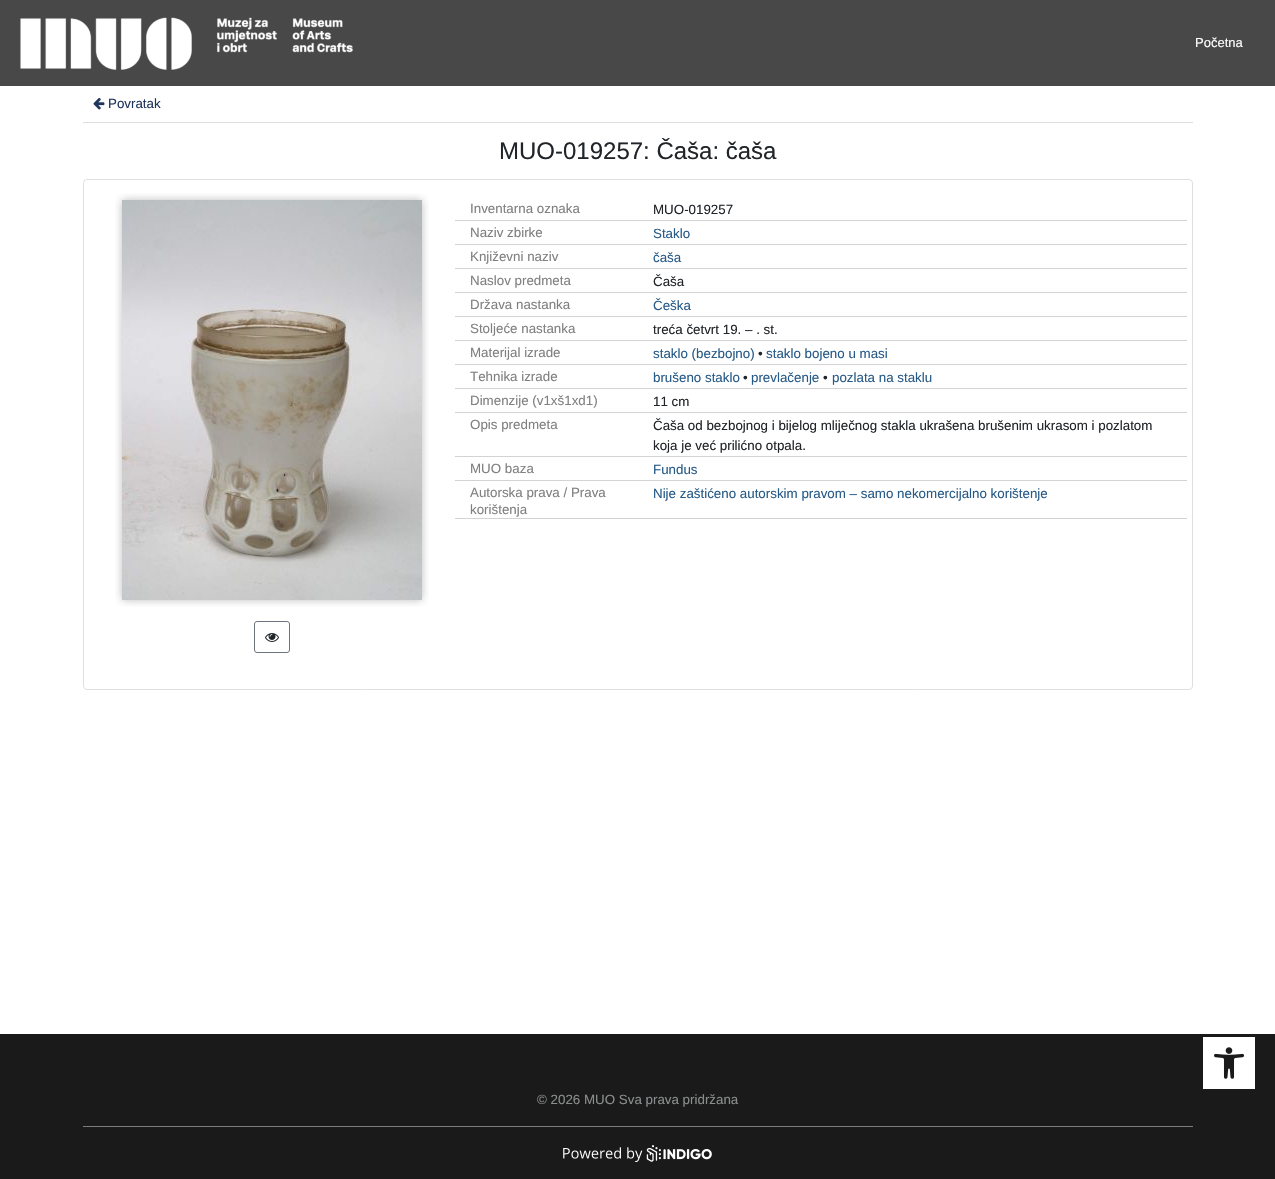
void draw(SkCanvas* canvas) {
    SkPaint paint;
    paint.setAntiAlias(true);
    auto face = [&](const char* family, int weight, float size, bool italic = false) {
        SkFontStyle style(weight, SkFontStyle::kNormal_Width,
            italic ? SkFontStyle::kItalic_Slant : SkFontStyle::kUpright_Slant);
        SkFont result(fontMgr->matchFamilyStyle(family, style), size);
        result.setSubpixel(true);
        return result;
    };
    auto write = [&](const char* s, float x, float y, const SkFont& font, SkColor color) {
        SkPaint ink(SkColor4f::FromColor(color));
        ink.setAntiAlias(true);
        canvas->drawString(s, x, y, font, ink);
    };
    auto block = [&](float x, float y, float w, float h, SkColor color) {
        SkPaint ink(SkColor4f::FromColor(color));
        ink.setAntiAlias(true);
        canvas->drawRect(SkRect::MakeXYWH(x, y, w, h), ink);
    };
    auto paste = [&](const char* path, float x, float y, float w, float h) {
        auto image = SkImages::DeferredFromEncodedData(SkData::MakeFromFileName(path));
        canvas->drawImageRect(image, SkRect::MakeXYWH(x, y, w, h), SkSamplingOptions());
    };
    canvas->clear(SK_ColorWHITE);
    block(0, 0, 1275, 86, SkColorSetRGB(72, 72, 72));
    paste("pic1.png", 20, 17, 333, 53);
    auto kFont1 = face("Liberation Sans", 400, 13);
    write("Početna", 1195, 47, kFont1, SK_ColorWHITE);
    block(83, 122, 1110, 1, SkColorSetRGB(223, 223, 223));
    paste("pic2.png", 93, 97, 12, 13);
    auto kFont2 = face("Liberation Sans", 400, 13.35f);
    write("Povratak", 108, 108, kFont2, SkColorSetRGB(31, 54, 92));
    auto kFont3 = face("Liberation Sans", 400, 24);
    write("MUO-019257: Čaša: čaša", 499, 159, kFont3, SkColorSetRGB(33, 37, 41));
    paint.setStyle(SkPaint::kStroke_Style);
    paint.setStrokeWidth(1);
    paint.setColor(SkColorSetRGB(223, 223, 223));
    canvas->drawRoundRect(SkRect::MakeXYWH(83.5f, 179.5f, 1109, 510), 3.5f, 3.5f, paint);
    paste("pic3.png", 115, 193, 314, 414);
    paint.setColor(SkColorSetRGB(108, 117, 125));
    canvas->drawRoundRect(SkRect::MakeXYWH(254.5f, 621.5f, 35, 31), 2.5f, 2.5f, paint);
    paste("pic4.png", 265, 633, 14, 9);
    block(455, 220, 732, 1, SkColorSetRGB(211, 211, 211));
    write("Inventarna oznaka", 470, 213, kFont2, SkColorSetRGB(128, 128, 128));
    write("MUO-019257", 653, 214, kFont2, SkColorSetRGB(33, 37, 41));
    block(455, 244, 732, 1, SkColorSetRGB(211, 211, 211));
    write("Naziv zbirke", 470, 237, kFont2, SkColorSetRGB(128, 128, 128));
    write("Staklo", 653, 238, kFont2, SkColorSetRGB(39, 90, 135));
    block(455, 268, 732, 1, SkColorSetRGB(211, 211, 211));
    write("Književni naziv", 470, 261, kFont2, SkColorSetRGB(128, 128, 128));
    write("čaša", 653, 262, kFont2, SkColorSetRGB(39, 90, 135));
    block(455, 292, 732, 1, SkColorSetRGB(211, 211, 211));
    write("Naslov predmeta", 470, 285, kFont2, SkColorSetRGB(128, 128, 128));
    write("Čaša", 653, 286, kFont2, SkColorSetRGB(33, 37, 41));
    block(455, 316, 732, 1, SkColorSetRGB(211, 211, 211));
    write("Država nastanka", 470, 309, kFont2, SkColorSetRGB(128, 128, 128));
    write("Češka", 653, 310, kFont2, SkColorSetRGB(39, 90, 135));
    block(455, 340, 732, 1, SkColorSetRGB(211, 211, 211));
    write("Stoljeće nastanka", 470, 333, kFont2, SkColorSetRGB(128, 128, 128));
    write("treća četvrt 19. – . st.", 653, 334, kFont2, SkColorSetRGB(33, 37, 41));
    block(455, 364, 732, 1, SkColorSetRGB(211, 211, 211));
    write("Materijal izrade", 470, 357, kFont2, SkColorSetRGB(128, 128, 128));
    write("staklo (bezbojno)", 653, 358, kFont2, SkColorSetRGB(39, 90, 135));
    write("•", 758, 358, kFont2, SkColorSetRGB(33, 37, 41));
    write("staklo bojeno u masi", 766, 358, kFont2, SkColorSetRGB(39, 90, 135));
    block(455, 388, 732, 1, SkColorSetRGB(211, 211, 211));
    write("Tehnika izrade", 470, 381, kFont2, SkColorSetRGB(128, 128, 128));
    write("brušeno staklo", 653, 382, kFont2, SkColorSetRGB(39, 90, 135));
    write("•", 743, 382, kFont2, SkColorSetRGB(33, 37, 41));
    write("prevlačenje", 751, 382, kFont2, SkColorSetRGB(39, 90, 135));
    write("•", 823, 382, kFont2, SkColorSetRGB(33, 37, 41));
    write("pozlata na staklu", 832, 382, kFont2, SkColorSetRGB(39, 90, 135));
    block(455, 412, 732, 1, SkColorSetRGB(211, 211, 211));
    write("Dimenzije (v1xš1xd1)", 470, 405, kFont2, SkColorSetRGB(128, 128, 128));
    write("11 cm", 653, 406, kFont2, SkColorSetRGB(33, 37, 41));
    block(455, 456, 732, 1, SkColorSetRGB(211, 211, 211));
    write("Opis predmeta", 470, 429, kFont2, SkColorSetRGB(128, 128, 128));
    write("Čaša od bezbojnog i bijelog mliječnog stakla ukrašena brušenim ukrasom i pozlatom", 653, 430, kFont2, SkColorSetRGB(33, 37, 41));
    write("koja je već prilićno otpala.", 653, 450, kFont2, SkColorSetRGB(33, 37, 41));
    block(455, 480, 732, 1, SkColorSetRGB(211, 211, 211));
    write("MUO baza", 470, 473, kFont2, SkColorSetRGB(128, 128, 128));
    write("Fundus", 653, 474, kFont2, SkColorSetRGB(39, 90, 135));
    block(455, 518, 732, 1, SkColorSetRGB(211, 211, 211));
    write("Autorska prava / Prava", 470, 497, kFont2, SkColorSetRGB(128, 128, 128));
    write("korištenja", 470, 514, kFont2, SkColorSetRGB(128, 128, 128));
    write("Nije zaštićeno autorskim pravom – samo nekomercijalno korištenje", 653, 498, kFont2, SkColorSetRGB(39, 90, 135));
    block(0, 1034, 1275, 145, SkColorSetRGB(26, 26, 26));
    block(1203, 1037, 52, 52, SK_ColorWHITE);
    paste("pic5.png", 1214, 1047, 30, 32);
    write("© 2026 MUO Sva prava pridržana", 537, 1104, kFont2, SkColorSetRGB(139, 140, 141));
    block(83, 1126, 1110, 1, SkColorSetRGB(125, 126, 127));
    paste("pic6.png", 563, 1145, 149, 17);
}
